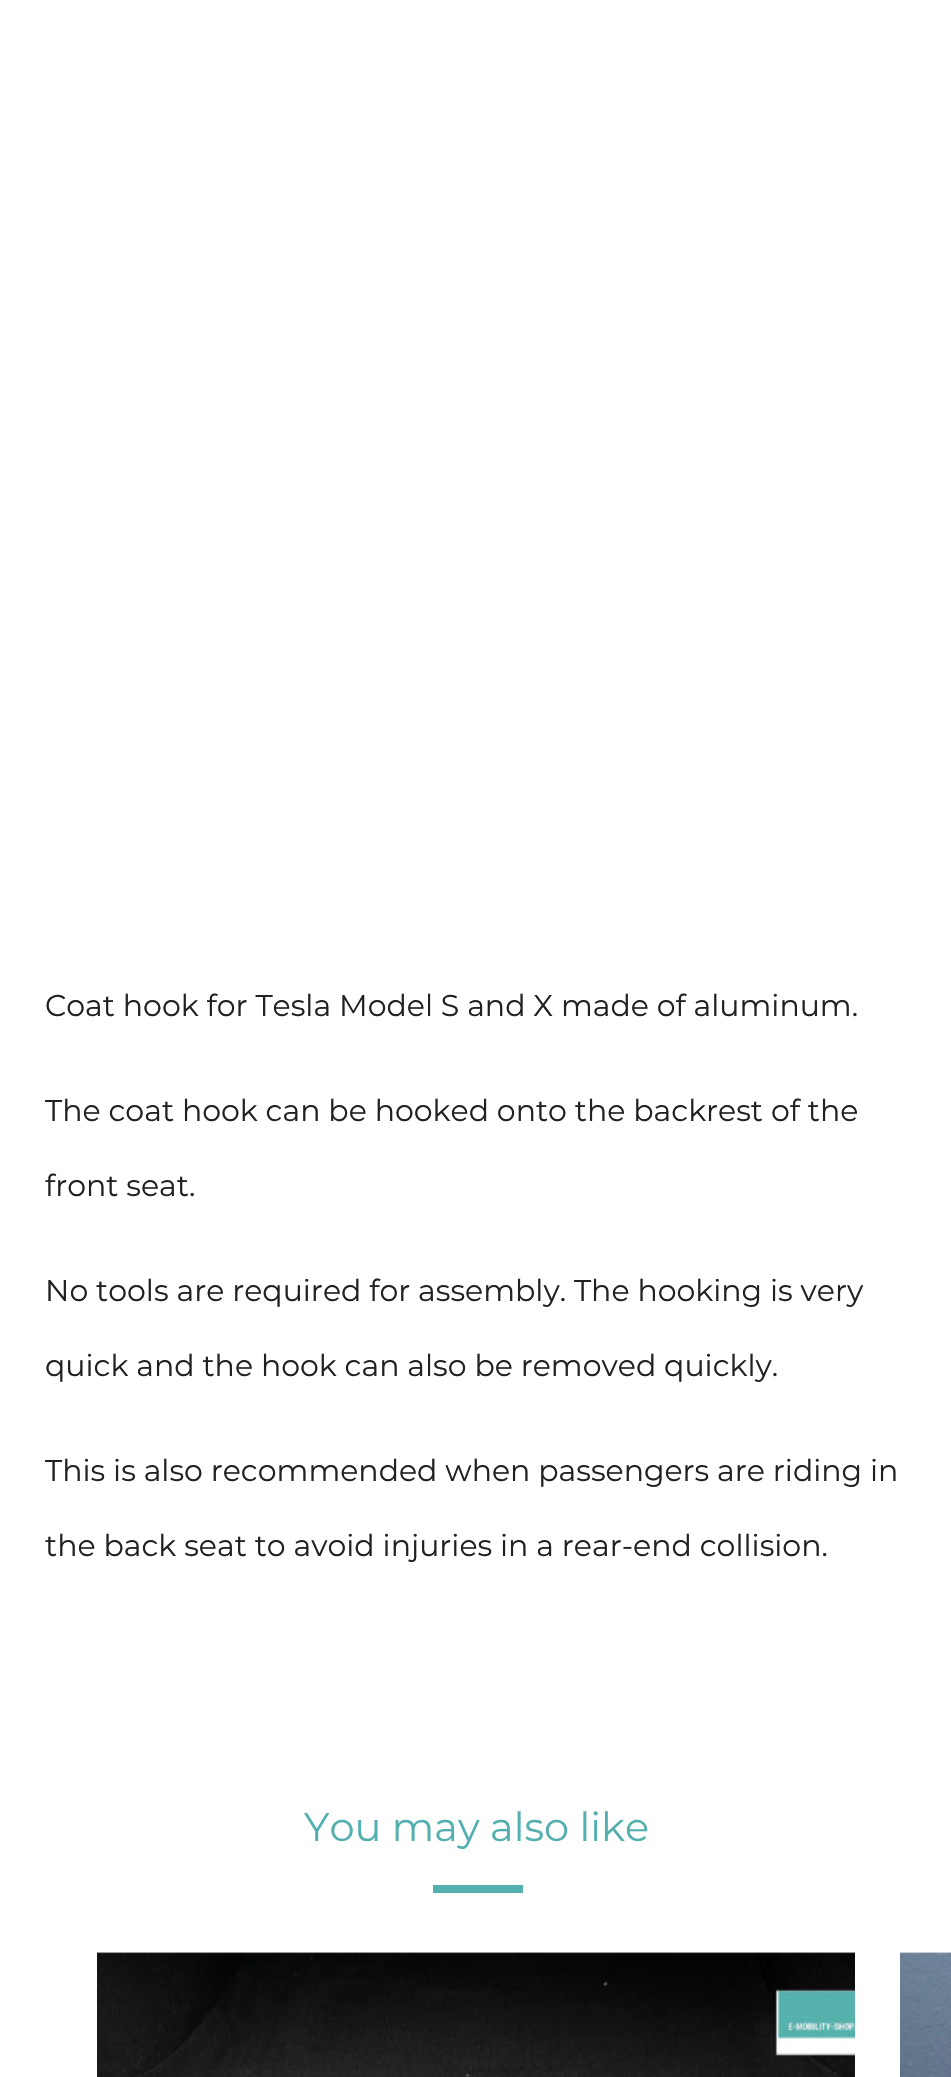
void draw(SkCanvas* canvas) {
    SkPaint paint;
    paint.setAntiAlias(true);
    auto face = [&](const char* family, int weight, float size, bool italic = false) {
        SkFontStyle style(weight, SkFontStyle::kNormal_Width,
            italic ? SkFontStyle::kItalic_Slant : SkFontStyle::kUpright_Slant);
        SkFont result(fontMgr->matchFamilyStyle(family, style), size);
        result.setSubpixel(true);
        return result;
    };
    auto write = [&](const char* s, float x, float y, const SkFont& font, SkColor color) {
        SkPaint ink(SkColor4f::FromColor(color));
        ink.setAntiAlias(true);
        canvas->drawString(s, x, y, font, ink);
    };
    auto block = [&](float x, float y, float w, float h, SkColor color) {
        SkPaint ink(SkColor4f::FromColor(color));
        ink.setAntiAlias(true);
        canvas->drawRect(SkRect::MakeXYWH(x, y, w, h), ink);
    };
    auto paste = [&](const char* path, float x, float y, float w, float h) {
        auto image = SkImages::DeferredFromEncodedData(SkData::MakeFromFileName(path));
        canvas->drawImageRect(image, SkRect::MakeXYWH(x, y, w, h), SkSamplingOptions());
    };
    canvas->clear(SK_ColorWHITE);
    auto kFont1 = face("Montserrat", 400, 30);
    write("Coat hook for Tesla Model S and X made of aluminum.", 45, 1016, kFont1, SkColorSetRGB(33, 33, 33));
    write("The coat hook can be hooked onto the backrest of the", 45, 1121, kFont1, SkColorSetRGB(33, 33, 33));
    write("front seat.", 45, 1196, kFont1, SkColorSetRGB(33, 33, 33));
    write("No tools are required for assembly. The hooking is very", 45, 1301, kFont1, SkColorSetRGB(33, 33, 33));
    write("quick and the hook can also be removed quickly.", 45, 1376, kFont1, SkColorSetRGB(33, 33, 33));
    write("This is also recommended when passengers are riding in", 45, 1481, kFont1, SkColorSetRGB(33, 33, 33));
    write("the back seat to avoid injuries in a rear-end collision.", 45, 1556, kFont1, SkColorSetRGB(33, 33, 33));
    auto kFont2 = face("Montserrat", 400, 40);
    write("You may also like", 304, 1841, kFont2, SkColorSetRGB(83, 176, 174));
    block(433, 1885, 90, 8, SkColorSetRGB(83, 176, 174));
    paste("pic1.png", 97, 1952, 758, 125);
    paste("pic2.png", 900, 1952, 51, 125);
}
